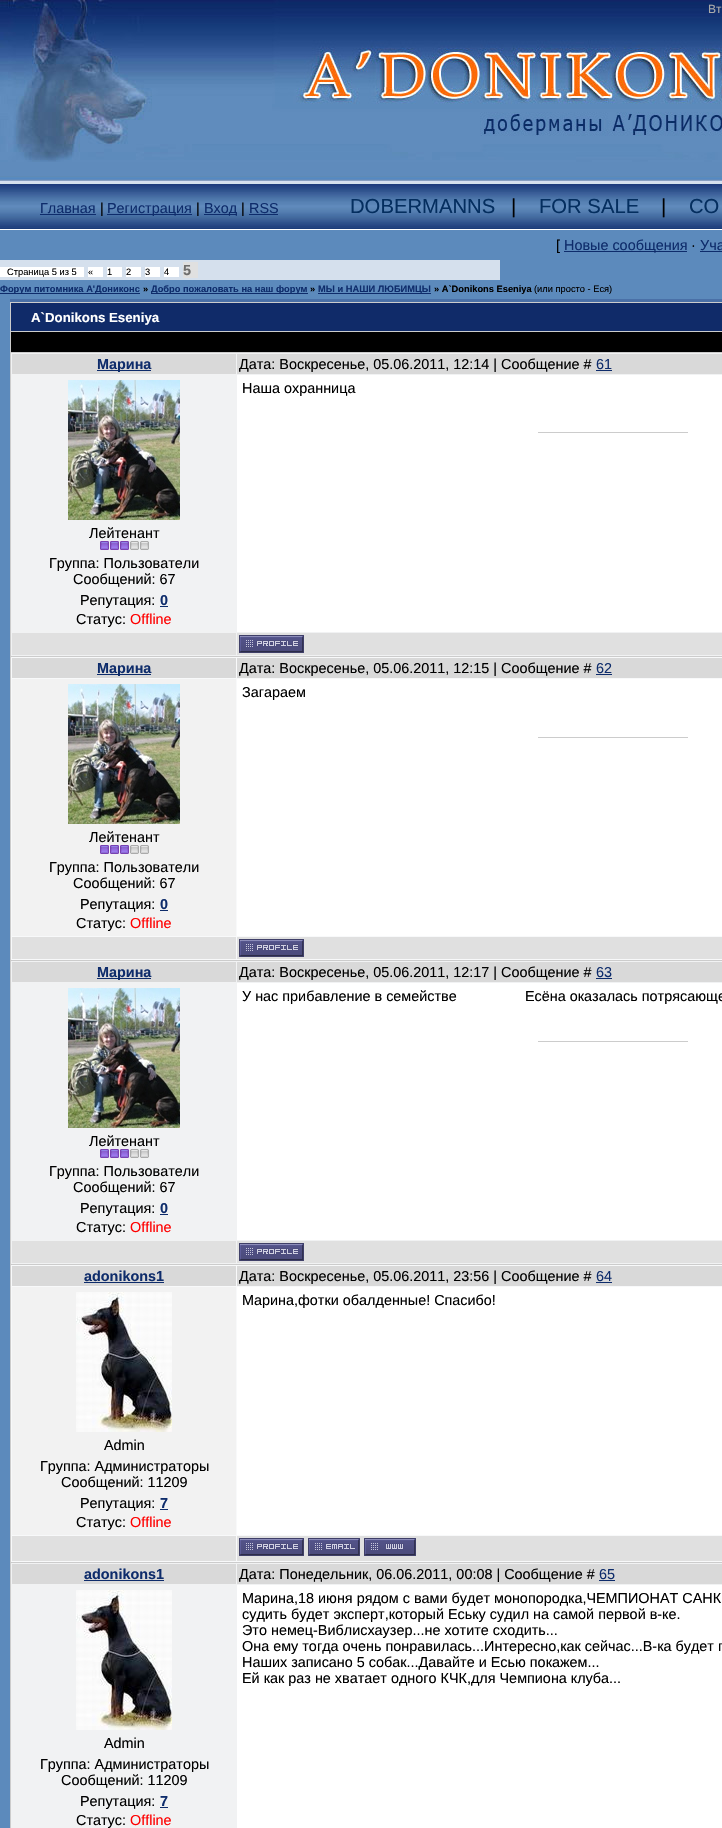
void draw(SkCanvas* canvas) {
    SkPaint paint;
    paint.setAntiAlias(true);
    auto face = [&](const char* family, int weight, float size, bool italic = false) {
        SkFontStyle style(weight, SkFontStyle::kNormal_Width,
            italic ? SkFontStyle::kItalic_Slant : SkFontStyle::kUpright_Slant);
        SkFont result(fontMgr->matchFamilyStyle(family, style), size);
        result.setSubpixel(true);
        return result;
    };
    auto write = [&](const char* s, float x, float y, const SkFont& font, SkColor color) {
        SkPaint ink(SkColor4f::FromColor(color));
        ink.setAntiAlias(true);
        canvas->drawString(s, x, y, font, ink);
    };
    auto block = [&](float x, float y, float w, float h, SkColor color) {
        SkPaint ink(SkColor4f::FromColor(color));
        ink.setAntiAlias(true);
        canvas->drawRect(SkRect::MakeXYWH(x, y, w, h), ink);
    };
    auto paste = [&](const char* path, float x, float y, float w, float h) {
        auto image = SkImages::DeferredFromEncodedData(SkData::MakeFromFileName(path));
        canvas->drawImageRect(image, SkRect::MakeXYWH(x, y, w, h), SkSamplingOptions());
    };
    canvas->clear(SkColorSetRGB(92, 138, 188));
    paste("pic1.png", 0, 162, 722, 22);
    paste("pic2.png", 0, 0, 722, 162);
    auto kFont1 = face("Liberation Sans", 400, 12);
    write("Вт", 708, 13, kFont1, SkColorSetRGB(170, 170, 170));
    paste("pic3.png", 0, 184, 722, 45);
    block(0, 229, 722, 1, SK_ColorWHITE);
    auto kFont2 = face("Liberation Sans", 400, 14.4f);
    write("Главная", 40, 213, kFont2, SkColorSetRGB(14, 44, 107));
    block(40, 214, 56, 1, SkColorSetRGB(14, 44, 107));
    write("|", 100, 213, kFont2, SK_ColorBLACK);
    block(107, 214, 85, 1, SkColorSetRGB(14, 44, 107));
    write("Регистрация", 107, 213, kFont2, SkColorSetRGB(14, 44, 107));
    write("|", 196, 213, kFont2, SK_ColorBLACK);
    block(204, 214, 33, 1, SkColorSetRGB(14, 44, 107));
    write("Вход", 204, 213, kFont2, SkColorSetRGB(14, 44, 107));
    write("|", 241, 213, kFont2, SK_ColorBLACK);
    write("RSS", 249, 213, kFont2, SkColorSetRGB(14, 44, 107));
    block(249, 214, 29, 1, SkColorSetRGB(14, 44, 107));
    auto kFont3 = face("Liberation Sans", 400, 20.25f);
    write("DOBERMANNS", 350, 213, kFont3, SkColorSetRGB(4, 46, 95));
    write("|", 511, 213, kFont3, SK_ColorBLACK);
    write("FOR SALE", 539, 213, kFont3, SkColorSetRGB(4, 46, 95));
    write("|", 661, 213, kFont3, SK_ColorBLACK);
    write("CO", 689, 213, kFont3, SkColorSetRGB(4, 46, 95));
    write("[", 556, 250, kFont2, SK_ColorBLACK);
    block(564, 251, 123, 1, SkColorSetRGB(14, 44, 107));
    write("Новые сообщения", 564, 250, kFont2, SkColorSetRGB(14, 44, 107));
    write("·", 691, 250, kFont2, SK_ColorBLACK);
    write("Уча", 700, 250, kFont2, SkColorSetRGB(14, 44, 107));
    block(700, 251, 22, 1, SkColorSetRGB(14, 44, 107));
    block(0, 260, 500, 20, SkColorSetRGB(213, 224, 237));
    block(0, 267, 84, 10, SK_ColorWHITE);
    auto kFont4 = face("Liberation Sans", 400, 9.3f);
    write("Страница 5 из 5", 7, 275, kFont4, SK_ColorBLACK);
    block(88, 267, 15, 10, SK_ColorWHITE);
    write("«", 88, 275, kFont4, SK_ColorBLACK);
    block(107, 267, 15, 10, SK_ColorWHITE);
    write("1", 107, 275, kFont4, SK_ColorBLACK);
    block(126, 267, 15, 10, SK_ColorWHITE);
    write("2", 126, 275, kFont4, SK_ColorBLACK);
    block(145, 267, 15, 10, SK_ColorWHITE);
    write("3", 145, 275, kFont4, SK_ColorBLACK);
    block(164, 267, 15, 10, SK_ColorWHITE);
    write("4", 164, 275, kFont4, SK_ColorBLACK);
    block(183, 262, 15, 16, SkColorSetRGB(224, 224, 224));
    auto kFont5 = face("Liberation Sans", 700, 14.4f);
    write("5", 183, 275, kFont5, SkColorSetRGB(110, 110, 110));
    block(0, 293, 140, 1, SkColorSetRGB(14, 44, 107));
    auto kFont6 = face("Liberation Sans", 700, 9.3f);
    write("Форум питомника А'Дониконс", 0, 292, kFont6, SkColorSetRGB(14, 44, 107));
    write("»", 143, 292, kFont6, SK_ColorBLACK);
    block(151, 293, 157, 1, SkColorSetRGB(14, 44, 107));
    write("Добро пожаловать на наш форум", 151, 292, kFont6, SkColorSetRGB(14, 44, 107));
    write("»", 310, 292, kFont6, SK_ColorBLACK);
    block(318, 293, 113, 1, SkColorSetRGB(14, 44, 107));
    write("МЫ и НАШИ ЛЮБИМЦЫ", 318, 292, kFont6, SkColorSetRGB(14, 44, 107));
    write("» A`Donikons Eseniya", 434, 292, kFont6, SK_ColorBLACK);
    write("(или просто - Еся)", 534, 292, kFont4, SK_ColorBLACK);
    block(10, 302, 712, 1526, SkColorSetRGB(204, 204, 204));
    block(10, 299, 712, 3, SkColorSetRGB(74, 112, 167));
    block(11, 303, 711, 28, SkColorSetRGB(16, 43, 105));
    auto kFont7 = face("Liberation Sans", 700, 13.25f);
    write("A`Donikons Eseniya", 31, 322, kFont7, SK_ColorWHITE);
    block(11, 332, 711, 20, SK_ColorBLACK);
    block(11, 353, 711, 303, SkColorSetRGB(241, 242, 243));
    block(12, 354, 224, 20, SkColorSetRGB(217, 217, 217));
    block(97, 370, 54, 1, SkColorSetRGB(14, 44, 107));
    write("Марина", 97, 369, kFont5, SkColorSetRGB(14, 44, 107));
    block(237, 354, 485, 20, SkColorSetRGB(217, 217, 217));
    write("Дата: Воскресенье, 05.06.2011, 12:14 | Сообщение #", 239, 369, kFont2, SK_ColorBLACK);
    write("61", 596, 369, kFont2, SkColorSetRGB(14, 44, 107));
    block(596, 370, 16, 1, SkColorSetRGB(14, 44, 107));
    block(237, 375, 485, 257, SK_ColorWHITE);
    write("Наша охранница", 242, 393, kFont2, SK_ColorBLACK);
    block(538, 432, 150, 1, SkColorSetRGB(204, 204, 204));
    paste("pic4.png", 68, 380, 112, 140);
    write("Лейтенант", 89, 538, kFont2, SK_ColorBLACK);
    paste("pic5.png", 100, 541, 49, 9);
    write("Группа: Пользователи", 49, 568, kFont2, SK_ColorBLACK);
    write("Сообщений: 67", 73, 584, kFont2, SK_ColorBLACK);
    write("Репутация:", 80, 605, kFont2, SK_ColorBLACK);
    write("0", 160, 605, kFont5, SkColorSetRGB(14, 44, 107));
    block(160, 606, 8, 1, SkColorSetRGB(14, 44, 107));
    write("Статус:", 76, 624, kFont2, SK_ColorBLACK);
    write("Offline", 130, 624, kFont2, SkColorSetRGB(255, 0, 0));
    block(12, 633, 224, 22, SkColorSetRGB(224, 224, 224));
    block(237, 633, 485, 22, SkColorSetRGB(224, 224, 224));
    paste("pic6.png", 239, 635, 65, 18);
    block(11, 657, 711, 303, SkColorSetRGB(248, 249, 250));
    block(12, 658, 224, 20, SkColorSetRGB(217, 217, 217));
    block(97, 674, 54, 1, SkColorSetRGB(14, 44, 107));
    write("Марина", 97, 673, kFont5, SkColorSetRGB(14, 44, 107));
    block(237, 658, 485, 20, SkColorSetRGB(217, 217, 217));
    write("Дата: Воскресенье, 05.06.2011, 12:15 | Сообщение #", 239, 673, kFont2, SK_ColorBLACK);
    write("62", 596, 673, kFont2, SkColorSetRGB(14, 44, 107));
    block(596, 674, 16, 1, SkColorSetRGB(14, 44, 107));
    block(237, 679, 485, 257, SK_ColorWHITE);
    write("Загараем", 242, 697, kFont2, SK_ColorBLACK);
    block(538, 737, 150, 1, SkColorSetRGB(204, 204, 204));
    block(12, 679, 224, 257, SkColorSetRGB(242, 242, 242));
    paste("pic4.png", 68, 684, 112, 140);
    write("Лейтенант", 89, 842, kFont2, SK_ColorBLACK);
    paste("pic7.png", 100, 845, 49, 9);
    write("Группа: Пользователи", 49, 872, kFont2, SK_ColorBLACK);
    write("Сообщений: 67", 73, 888, kFont2, SK_ColorBLACK);
    write("Репутация:", 80, 909, kFont2, SK_ColorBLACK);
    write("0", 160, 909, kFont5, SkColorSetRGB(14, 44, 107));
    block(160, 910, 8, 1, SkColorSetRGB(14, 44, 107));
    write("Статус:", 76, 928, kFont2, SK_ColorBLACK);
    write("Offline", 130, 928, kFont2, SkColorSetRGB(255, 0, 0));
    block(12, 937, 224, 22, SkColorSetRGB(224, 224, 224));
    block(237, 937, 485, 22, SkColorSetRGB(224, 224, 224));
    paste("pic6.png", 239, 939, 65, 18);
    block(11, 961, 711, 303, SkColorSetRGB(241, 242, 243));
    block(12, 962, 224, 20, SkColorSetRGB(217, 217, 217));
    block(97, 978, 54, 1, SkColorSetRGB(14, 44, 107));
    write("Марина", 97, 977, kFont5, SkColorSetRGB(14, 44, 107));
    block(237, 962, 485, 20, SkColorSetRGB(217, 217, 217));
    write("Дата: Воскресенье, 05.06.2011, 12:17 | Сообщение #", 239, 977, kFont2, SK_ColorBLACK);
    write("63", 596, 977, kFont2, SkColorSetRGB(14, 44, 107));
    block(596, 978, 16, 1, SkColorSetRGB(14, 44, 107));
    block(237, 983, 485, 257, SK_ColorWHITE);
    write("У нас прибавление в семействе", 242, 1001, kFont2, SK_ColorBLACK);
    write("Есёна оказалась потрясающе", 525, 1001, kFont2, SK_ColorBLACK);
    block(538, 1041, 150, 1, SkColorSetRGB(204, 204, 204));
    paste("pic4.png", 68, 988, 112, 140);
    write("Лейтенант", 89, 1146, kFont2, SK_ColorBLACK);
    paste("pic5.png", 100, 1149, 49, 9);
    write("Группа: Пользователи", 49, 1176, kFont2, SK_ColorBLACK);
    write("Сообщений: 67", 73, 1192, kFont2, SK_ColorBLACK);
    write("Репутация:", 80, 1213, kFont2, SK_ColorBLACK);
    write("0", 160, 1213, kFont5, SkColorSetRGB(14, 44, 107));
    block(160, 1214, 8, 1, SkColorSetRGB(14, 44, 107));
    write("Статус:", 76, 1232, kFont2, SK_ColorBLACK);
    write("Offline", 130, 1232, kFont2, SkColorSetRGB(255, 0, 0));
    block(12, 1241, 224, 22, SkColorSetRGB(224, 224, 224));
    block(237, 1241, 485, 22, SkColorSetRGB(224, 224, 224));
    paste("pic6.png", 239, 1243, 65, 18);
    block(11, 1265, 711, 297, SkColorSetRGB(248, 249, 250));
    block(12, 1266, 224, 20, SkColorSetRGB(217, 217, 217));
    write("adonikons1", 84, 1281, kFont5, SkColorSetRGB(14, 44, 107));
    block(84, 1282, 80, 1, SkColorSetRGB(14, 44, 107));
    block(237, 1266, 485, 20, SkColorSetRGB(217, 217, 217));
    write("Дата: Воскресенье, 05.06.2011, 23:56 | Сообщение #", 239, 1281, kFont2, SK_ColorBLACK);
    write("64", 596, 1281, kFont2, SkColorSetRGB(14, 44, 107));
    block(596, 1282, 16, 1, SkColorSetRGB(14, 44, 107));
    block(237, 1287, 485, 248, SK_ColorWHITE);
    write("Марина,фотки обалденные! Спасибо!", 242, 1305, kFont2, SK_ColorBLACK);
    block(12, 1287, 224, 248, SkColorSetRGB(242, 242, 242));
    paste("pic8.png", 76, 1292, 96, 140);
    write("Admin", 104, 1450, kFont2, SK_ColorBLACK);
    write("Группа: Администраторы", 40, 1471, kFont2, SK_ColorBLACK);
    write("Сообщений: 11209", 61, 1487, kFont2, SK_ColorBLACK);
    write("Репутация:", 80, 1508, kFont2, SK_ColorBLACK);
    write("7", 160, 1508, kFont5, SkColorSetRGB(14, 44, 107));
    block(160, 1509, 8, 1, SkColorSetRGB(14, 44, 107));
    write("Статус:", 76, 1527, kFont2, SK_ColorBLACK);
    write("Offline", 130, 1527, kFont2, SkColorSetRGB(255, 0, 0));
    block(12, 1536, 224, 25, SkColorSetRGB(224, 224, 224));
    block(237, 1536, 485, 25, SkColorSetRGB(224, 224, 224));
    paste("pic6.png", 239, 1538, 65, 18);
    paste("pic9.png", 308, 1538, 52, 18);
    paste("pic10.png", 364, 1538, 52, 18);
    block(11, 1563, 711, 265, SkColorSetRGB(241, 242, 243));
    block(12, 1564, 224, 20, SkColorSetRGB(217, 217, 217));
    write("adonikons1", 84, 1579, kFont5, SkColorSetRGB(14, 44, 107));
    block(84, 1580, 80, 1, SkColorSetRGB(14, 44, 107));
    block(237, 1564, 485, 20, SkColorSetRGB(217, 217, 217));
    write("Дата: Понедельник, 06.06.2011, 00:08 | Сообщение #", 239, 1579, kFont2, SK_ColorBLACK);
    write("65", 599, 1579, kFont2, SkColorSetRGB(14, 44, 107));
    block(599, 1580, 16, 1, SkColorSetRGB(14, 44, 107));
    block(237, 1585, 485, 243, SK_ColorWHITE);
    write("Марина,18 июня рядом с вами будет монопородка,ЧЕМПИОНАТ САНК", 242, 1603, kFont2, SK_ColorBLACK);
    write("судить будет эксперт,который Еську судил на самой первой в-ке.", 242, 1619, kFont2, SK_ColorBLACK);
    write("Это немец-Виблисхаузер...не хотите сходить...", 242, 1635, kFont2, SK_ColorBLACK);
    write("Она ему тогда очень понравилась...Интересно,как сейчас...В-ка будет п", 242, 1651, kFont2, SK_ColorBLACK);
    write("Наших записано 5 собак...Давайте и Есью покажем...", 242, 1667, kFont2, SK_ColorBLACK);
    write("Ей как раз не хватает одного КЧК,для Чемпиона клуба...", 242, 1683, kFont2, SK_ColorBLACK);
    paste("pic8.png", 76, 1590, 96, 140);
    write("Admin", 104, 1748, kFont2, SK_ColorBLACK);
    write("Группа: Администраторы", 40, 1769, kFont2, SK_ColorBLACK);
    write("Сообщений: 11209", 61, 1785, kFont2, SK_ColorBLACK);
    write("Репутация:", 80, 1806, kFont2, SK_ColorBLACK);
    write("7", 160, 1806, kFont5, SkColorSetRGB(14, 44, 107));
    block(160, 1807, 8, 1, SkColorSetRGB(14, 44, 107));
    write("Статус:", 76, 1825, kFont2, SK_ColorBLACK);
    write("Offline", 130, 1825, kFont2, SkColorSetRGB(255, 0, 0));
}
